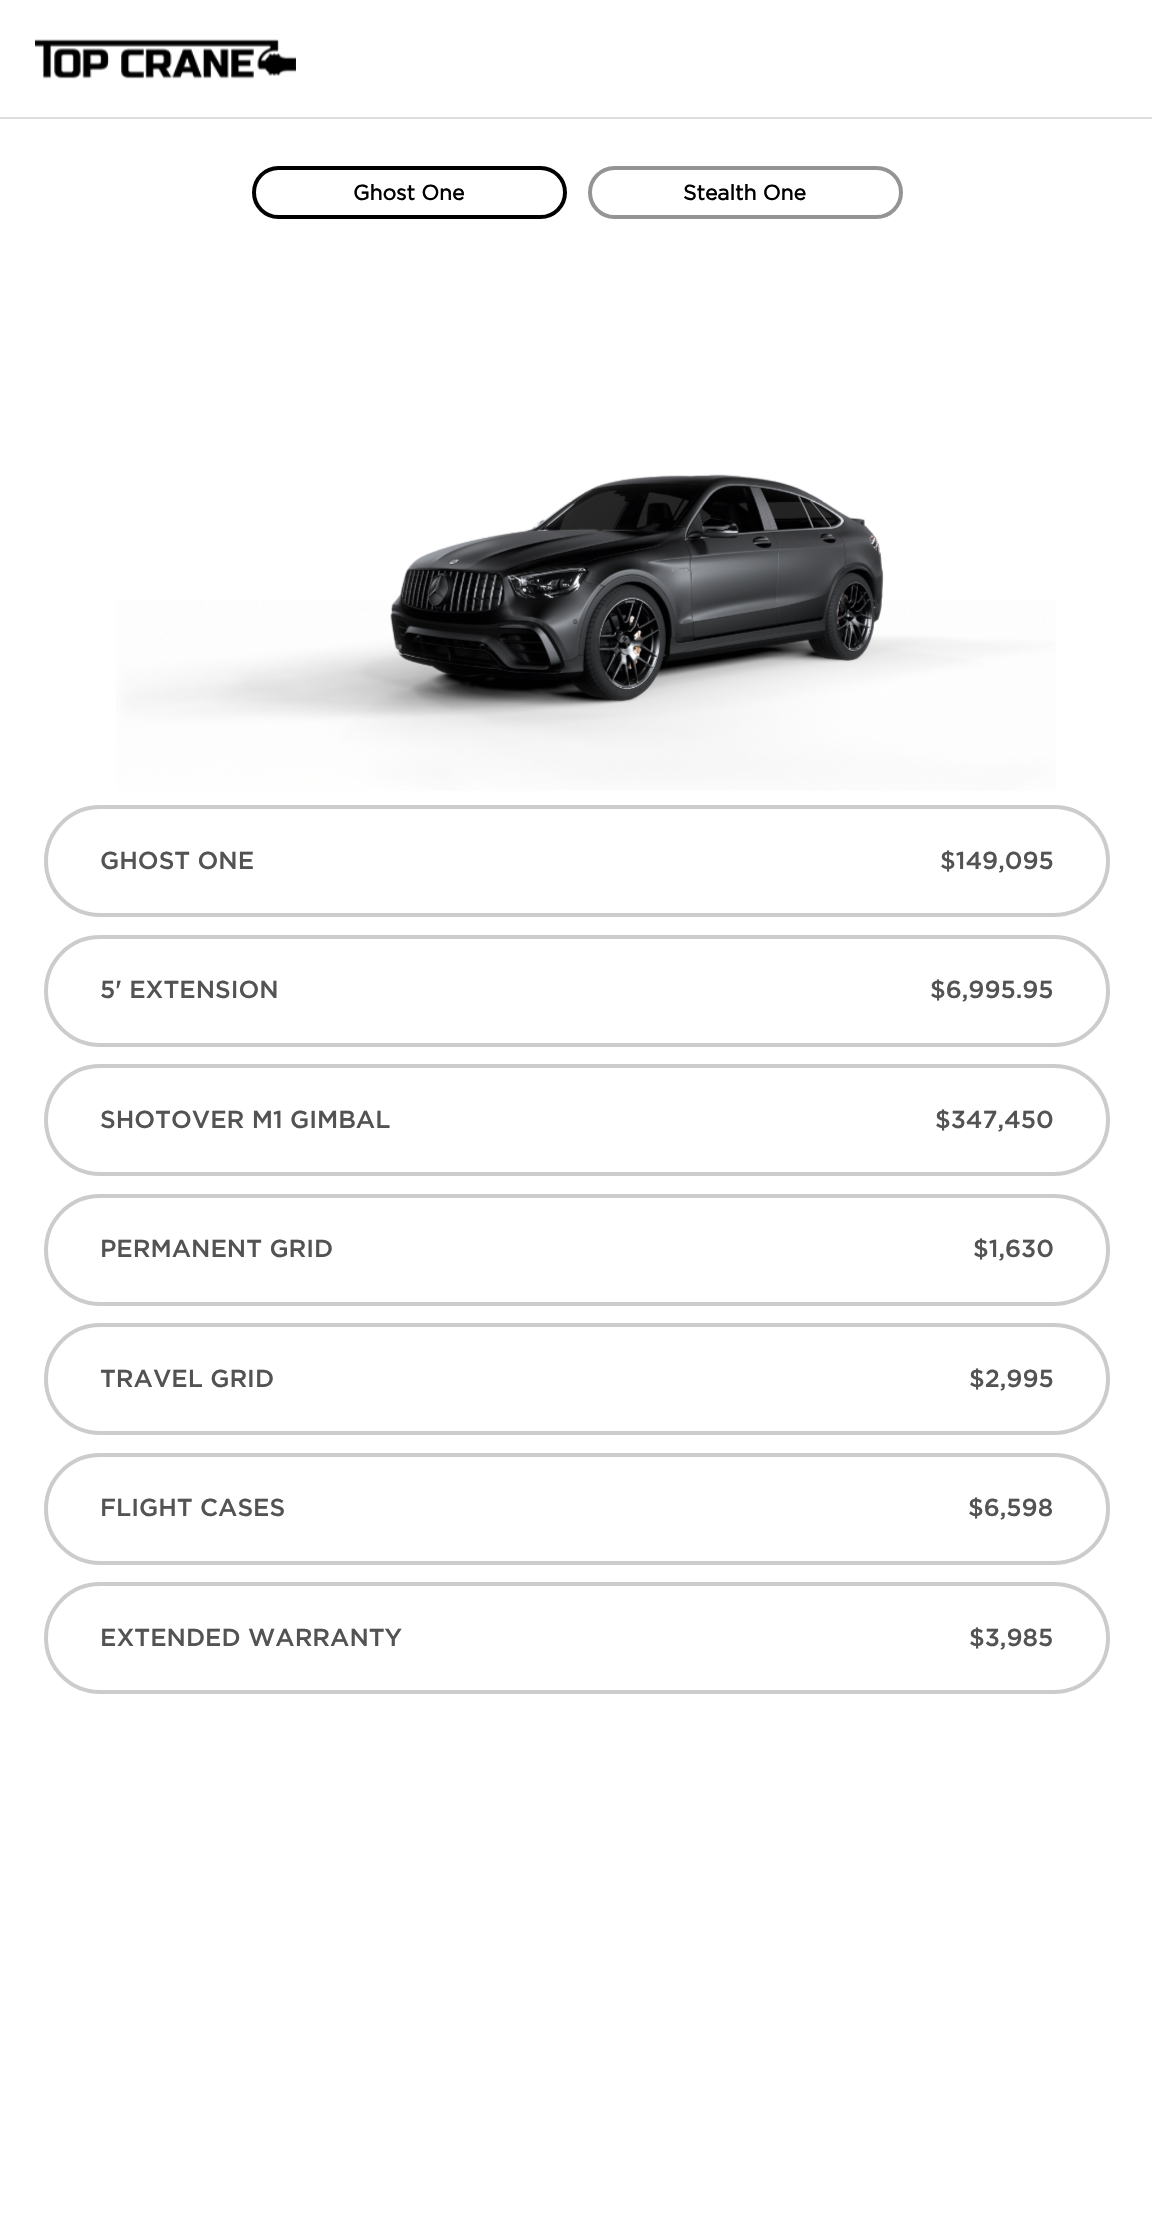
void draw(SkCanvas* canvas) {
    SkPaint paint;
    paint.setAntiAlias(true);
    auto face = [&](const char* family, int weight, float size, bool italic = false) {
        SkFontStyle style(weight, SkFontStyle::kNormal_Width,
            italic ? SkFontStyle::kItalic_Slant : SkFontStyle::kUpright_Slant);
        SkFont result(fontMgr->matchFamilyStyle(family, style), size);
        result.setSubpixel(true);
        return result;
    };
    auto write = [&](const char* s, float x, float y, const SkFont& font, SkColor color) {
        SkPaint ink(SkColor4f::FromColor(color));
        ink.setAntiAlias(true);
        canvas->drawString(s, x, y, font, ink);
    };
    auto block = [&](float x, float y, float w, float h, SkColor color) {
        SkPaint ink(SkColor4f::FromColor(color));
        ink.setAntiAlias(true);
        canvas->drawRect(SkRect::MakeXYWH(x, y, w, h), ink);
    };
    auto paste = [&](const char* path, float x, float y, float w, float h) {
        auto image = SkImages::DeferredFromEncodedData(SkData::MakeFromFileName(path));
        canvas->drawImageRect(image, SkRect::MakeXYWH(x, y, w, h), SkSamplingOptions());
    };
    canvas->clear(SK_ColorWHITE);
    block(0, 117, 1152, 2, SkColorSetRGB(221, 221, 221));
    paste("pic1.png", 35, 39, 261, 40);
    paint.setStyle(SkPaint::kStroke_Style);
    paint.setStrokeWidth(4);
    paint.setColor(SK_ColorBLACK);
    canvas->drawRoundRect(SkRect::MakeXYWH(254, 168, 311, 49), 24.5f, 24.5f, paint);
    auto kFont1 = face("Gotham", 700, 21);
    write("Ghost One", 353, 200, kFont1, SK_ColorBLACK);
    paint.setColor(SkColorSetRGB(148, 148, 148));
    canvas->drawRoundRect(SkRect::MakeXYWH(590, 168, 311, 49), 24.5f, 24.5f, paint);
    write("Stealth One", 683, 200, kFont1, SK_ColorBLACK);
    paste("pic3.png", 116, 600, 940, 191);
    paste("pic2.png", 390, 474, 494, 228);
    paint.setColor(SkColorSetRGB(204, 204, 204));
    canvas->drawRoundRect(SkRect::MakeXYWH(46, 807, 1062, 108), 54, 54, paint);
    auto kFont2 = face("Gotham", 500, 24.5f);
    write("GHOST ONE", 100, 869, kFont2, SkColorSetRGB(83, 83, 83));
    write("$149,095", 940, 869, kFont2, SkColorSetRGB(83, 83, 83));
    canvas->drawRoundRect(SkRect::MakeXYWH(46, 937, 1062, 108), 54, 54, paint);
    write("5' EXTENSION", 100, 998, kFont2, SkColorSetRGB(83, 83, 83));
    write("$6,995.95", 930, 998, kFont2, SkColorSetRGB(83, 83, 83));
    canvas->drawRoundRect(SkRect::MakeXYWH(46, 1066, 1062, 108), 54, 54, paint);
    write("SHOTOVER M1 GIMBAL", 100, 1128, kFont2, SkColorSetRGB(83, 83, 83));
    write("$347,450", 935, 1128, kFont2, SkColorSetRGB(83, 83, 83));
    canvas->drawRoundRect(SkRect::MakeXYWH(46, 1196, 1062, 108), 54, 54, paint);
    write("PERMANENT GRID", 100, 1257, kFont2, SkColorSetRGB(83, 83, 83));
    write("$1,630", 973, 1257, kFont2, SkColorSetRGB(83, 83, 83));
    canvas->drawRoundRect(SkRect::MakeXYWH(46, 1325, 1062, 108), 54, 54, paint);
    write("TRAVEL GRID", 100, 1387, kFont2, SkColorSetRGB(83, 83, 83));
    write("$2,995", 969, 1387, kFont2, SkColorSetRGB(83, 83, 83));
    canvas->drawRoundRect(SkRect::MakeXYWH(46, 1455, 1062, 108), 54, 54, paint);
    write("FLIGHT CASES", 100, 1516, kFont2, SkColorSetRGB(83, 83, 83));
    write("$6,598", 968, 1516, kFont2, SkColorSetRGB(83, 83, 83));
    canvas->drawRoundRect(SkRect::MakeXYWH(46, 1584, 1062, 108), 54, 54, paint);
    write("EXTENDED WARRANTY", 100, 1646, kFont2, SkColorSetRGB(83, 83, 83));
    write("$3,985", 969, 1646, kFont2, SkColorSetRGB(83, 83, 83));
}
